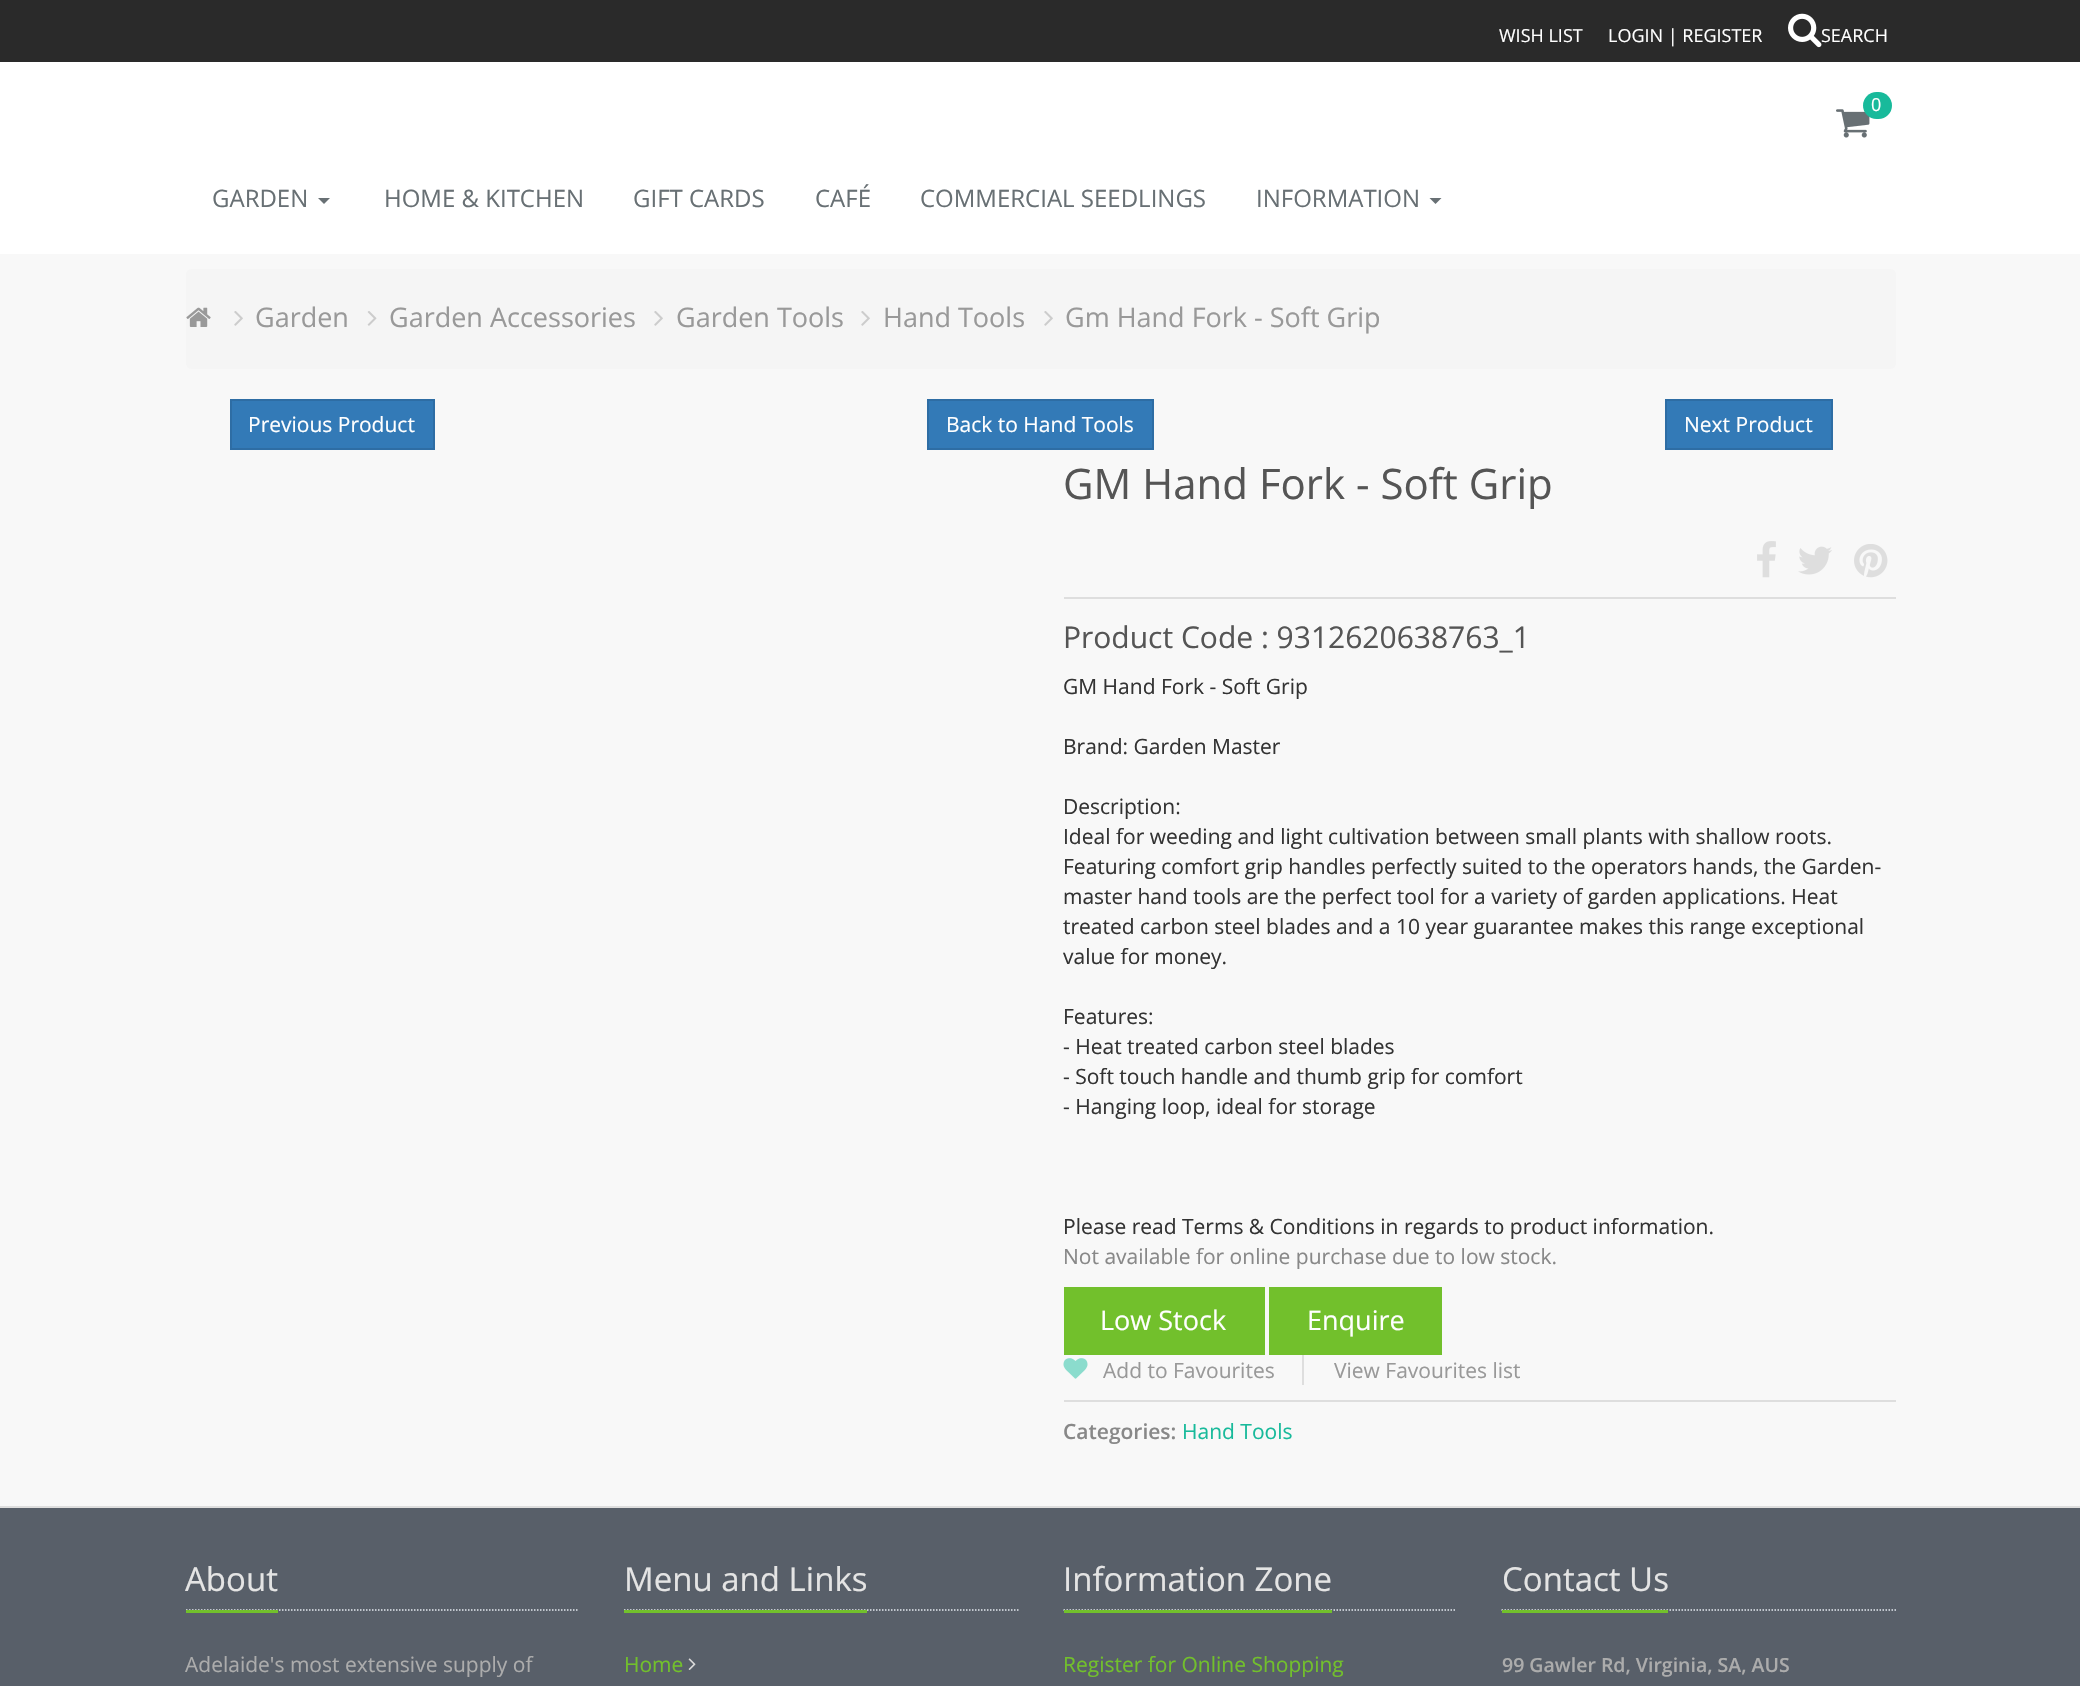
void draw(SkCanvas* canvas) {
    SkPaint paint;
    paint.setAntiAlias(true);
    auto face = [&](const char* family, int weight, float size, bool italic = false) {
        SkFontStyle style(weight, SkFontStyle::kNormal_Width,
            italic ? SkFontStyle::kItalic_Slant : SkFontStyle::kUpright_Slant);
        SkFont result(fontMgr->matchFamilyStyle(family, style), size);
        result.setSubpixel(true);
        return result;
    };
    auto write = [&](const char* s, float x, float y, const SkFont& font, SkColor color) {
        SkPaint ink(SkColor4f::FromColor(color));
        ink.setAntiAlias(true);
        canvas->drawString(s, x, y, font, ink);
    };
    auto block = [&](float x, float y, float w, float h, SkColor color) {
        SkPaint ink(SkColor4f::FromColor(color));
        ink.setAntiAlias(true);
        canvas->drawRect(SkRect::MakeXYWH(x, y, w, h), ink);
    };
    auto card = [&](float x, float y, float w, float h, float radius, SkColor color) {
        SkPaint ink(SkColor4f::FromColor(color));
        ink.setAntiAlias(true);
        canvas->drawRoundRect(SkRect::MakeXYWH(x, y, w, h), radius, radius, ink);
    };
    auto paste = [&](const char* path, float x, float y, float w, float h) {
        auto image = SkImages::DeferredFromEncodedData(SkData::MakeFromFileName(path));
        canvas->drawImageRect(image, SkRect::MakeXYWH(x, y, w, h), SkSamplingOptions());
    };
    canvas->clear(SK_ColorWHITE);
    block(0, 0, 2080, 62, SkColorSetRGB(42, 42, 42));
    auto kFont1 = face("Open Sans", 400, 18);
    write("WISH LIST", 1499, 42, kFont1, SK_ColorWHITE);
    write("LOGIN | REGISTER", 1608, 42, kFont1, SK_ColorWHITE);
    paste("pic1.png", 1788, 13, 34, 35);
    write("SEARCH", 1821, 42, kFont1, SK_ColorWHITE);
    paste("pic2.png", 1836, 109, 34, 29);
    card(1863, 92, 29, 27, 13.5f, SkColorSetRGB(24, 186, 155));
    write("0", 1871, 111, kFont1, SK_ColorWHITE);
    auto kFont2 = face("Open Sans", 400, 24);
    write("GARDEN", 212, 207, kFont2, SkColorSetRGB(104, 112, 116));
    paint.setColor(SkColorSetRGB(104, 112, 116));
    canvas->drawPath(SkPathBuilder().moveTo(318, 198).lineTo(330, 198).lineTo(324, 204).close().detach(), paint);
    write("HOME & KITCHEN", 384, 207, kFont2, SkColorSetRGB(104, 112, 116));
    write("GIFT CARDS", 633, 207, kFont2, SkColorSetRGB(104, 112, 116));
    write("CAFÉ", 815, 207, kFont2, SkColorSetRGB(104, 112, 116));
    write("COMMERCIAL SEEDLINGS", 920, 207, kFont2, SkColorSetRGB(104, 112, 116));
    write("INFORMATION", 1256, 207, kFont2, SkColorSetRGB(104, 112, 116));
    canvas->drawPath(SkPathBuilder().moveTo(1429.5f, 198).lineTo(1441.5f, 198).lineTo(1435.5f, 204).close().detach(), paint);
    block(0, 254, 2080, 1252, SkColorSetRGB(248, 248, 248));
    block(0, 1506, 2080, 2, SkColorSetRGB(222, 222, 222));
    card(186, 269, 1710, 100, 6, SkColorSetRGB(245, 245, 245));
    paste("pic3.png", 186, 307, 25, 20);
    paste("pic4.png", 234, 311, 9, 15);
    auto kFont3 = face("Open Sans", 400, 27);
    write("Garden", 255, 327, kFont3, SkColorSetRGB(153, 153, 153));
    paste("pic5.png", 367, 311, 10, 15);
    write("Garden Accessories", 389, 327, kFont3, SkColorSetRGB(153, 153, 153));
    paste("pic4.png", 654, 311, 9, 15);
    write("Garden Tools", 676, 327, kFont3, SkColorSetRGB(153, 153, 153));
    paste("pic4.png", 861, 311, 9, 15);
    write("Hand Tools", 883, 327, kFont3, SkColorSetRGB(153, 153, 153));
    paste("pic4.png", 1044, 311, 9, 15);
    write("Gm Hand Fork - Soft Grip", 1065, 327, kFont3, SkColorSetRGB(153, 153, 153));
    paint.setColor(SkColorSetRGB(51, 122, 183));
    canvas->drawRect(SkRect::MakeXYWH(231, 400, 203, 49), paint);
    paint.setStyle(SkPaint::kStroke_Style);
    paint.setStrokeWidth(2);
    paint.setColor(SkColorSetRGB(46, 109, 164));
    canvas->drawRect(SkRect::MakeXYWH(231, 400, 203, 49), paint);
    auto kFont4 = face("Open Sans", 400, 21);
    write("Previous Product", 248, 432, kFont4, SK_ColorWHITE);
    paint.setStyle(SkPaint::kFill_Style);
    paint.setColor(SkColorSetRGB(51, 122, 183));
    canvas->drawRect(SkRect::MakeXYWH(928, 400, 225, 49), paint);
    paint.setStyle(SkPaint::kStroke_Style);
    paint.setColor(SkColorSetRGB(46, 109, 164));
    canvas->drawRect(SkRect::MakeXYWH(928, 400, 225, 49), paint);
    write("Back to Hand Tools", 946, 432, kFont4, SK_ColorWHITE);
    paint.setStyle(SkPaint::kFill_Style);
    paint.setColor(SkColorSetRGB(51, 122, 183));
    canvas->drawRect(SkRect::MakeXYWH(1666, 400, 166, 49), paint);
    paint.setStyle(SkPaint::kStroke_Style);
    paint.setColor(SkColorSetRGB(46, 109, 164));
    canvas->drawRect(SkRect::MakeXYWH(1666, 400, 166, 49), paint);
    write("Next Product", 1684, 432, kFont4, SK_ColorWHITE);
    block(1064, 597, 832, 2, SkColorSetRGB(222, 222, 222));
    auto kFont5 = face("Open Sans", 400, 42);
    write("GM Hand Fork - Soft Grip", 1063, 499, kFont5, SkColorSetRGB(85, 85, 85));
    paste("pic6.png", 1757, 541, 19, 37);
    paste("pic7.png", 1798, 546, 34, 29);
    paste("pic8.png", 1854, 544, 34, 34);
    auto kFont6 = face("Open Sans", 400, 30);
    write("Product Code : 9312620638763_1", 1063, 648, kFont6, SkColorSetRGB(85, 85, 85));
    write("GM Hand Fork - Soft Grip", 1063, 694, kFont4, SkColorSetRGB(51, 51, 51));
    write("Brand: Garden Master", 1063, 754, kFont4, SkColorSetRGB(51, 51, 51));
    write("Description:", 1063, 814, kFont4, SkColorSetRGB(51, 51, 51));
    write("Ideal for weeding and light cultivation between small plants with shallow roots.", 1063, 844, kFont4, SkColorSetRGB(51, 51, 51));
    write("Featuring comfort grip handles perfectly suited to the operators hands, the Garden-", 1063, 874, kFont4, SkColorSetRGB(51, 51, 51));
    write("master hand tools are the perfect tool for a variety of garden applications. Heat", 1063, 904, kFont4, SkColorSetRGB(51, 51, 51));
    write("treated carbon steel blades and a 10 year guarantee makes this range exceptional", 1063, 934, kFont4, SkColorSetRGB(51, 51, 51));
    write("value for money.", 1063, 964, kFont4, SkColorSetRGB(51, 51, 51));
    write("Features:", 1063, 1024, kFont4, SkColorSetRGB(51, 51, 51));
    write("- Heat treated carbon steel blades", 1063, 1054, kFont4, SkColorSetRGB(51, 51, 51));
    write("- Soft touch handle and thumb grip for comfort", 1063, 1084, kFont4, SkColorSetRGB(51, 51, 51));
    write("- Hanging loop, ideal for storage", 1063, 1114, kFont4, SkColorSetRGB(51, 51, 51));
    write("Please read Terms & Conditions in regards to product information.", 1063, 1234, kFont4, SkColorSetRGB(51, 51, 51));
    write("Not available for online purchase due to low stock.", 1063, 1264, kFont4, SkColorSetRGB(136, 136, 136));
    block(1064, 1287, 201, 68, SkColorSetRGB(114, 192, 44));
    write("Low Stock", 1100, 1330, kFont3, SK_ColorWHITE);
    block(1269, 1287, 173, 68, SkColorSetRGB(114, 192, 44));
    write("Enquire", 1307, 1330, kFont3, SK_ColorWHITE);
    block(1064, 1400, 832, 2, SkColorSetRGB(222, 222, 222));
    paste("pic9.png", 1063, 1358, 25, 21);
    write("Add to Favourites", 1103, 1378, kFont4, SkColorSetRGB(153, 153, 153));
    block(1302, 1355, 2, 30, SkColorSetRGB(222, 222, 222));
    write("View Favourites list", 1334, 1378, kFont4, SkColorSetRGB(153, 153, 153));
    auto kFont7 = face("Open Sans", 600, 21);
    write("Categories:", 1063, 1439, kFont7, SkColorSetRGB(136, 136, 136));
    write("Hand Tools", 1182, 1439, kFont4, SkColorSetRGB(24, 186, 155));
    block(0, 1508, 2080, 178, SkColorSetRGB(88, 95, 105));
    paint.setStrokeWidth(1.5f);
    paint.setColor(SkColorSetRGB(228, 233, 240));
    paint.setPathEffect(SkDashPathEffect::Make({{1.5f, 1.5f}}, 0));
    canvas->drawPath(SkPathBuilder().moveTo(186, 1610).lineTo(579, 1610).detach(), paint);
    paint.setPathEffect(nullptr);
    block(186, 1610, 92, 3, SkColorSetRGB(114, 192, 44));
    auto kFont8 = face("Open Sans", 400, 33);
    write("About", 185, 1591, kFont8, SkColorSetRGB(228, 228, 228));
    write("Adelaide's most extensive supply of", 185, 1672, kFont4, SkColorSetRGB(172, 172, 172));
    paint.setPathEffect(SkDashPathEffect::Make({{1.5f, 1.5f}}, 0));
    canvas->drawPath(SkPathBuilder().moveTo(624, 1610).lineTo(1018.5f, 1610).detach(), paint);
    paint.setPathEffect(nullptr);
    block(624, 1610, 243, 3, SkColorSetRGB(114, 192, 44));
    write("Menu and Links", 624, 1591, kFont8, SkColorSetRGB(228, 228, 228));
    write("Home", 624, 1672, kFont4, SkColorSetRGB(114, 192, 44));
    paste("pic10.png", 688, 1658, 8, 12);
    paint.setPathEffect(SkDashPathEffect::Make({{1.5f, 1.5f}}, 0));
    canvas->drawPath(SkPathBuilder().moveTo(1063.5f, 1610).lineTo(1456.5f, 1610).detach(), paint);
    paint.setPathEffect(nullptr);
    block(1064, 1610, 268, 3, SkColorSetRGB(114, 192, 44));
    write("Information Zone", 1063, 1591, kFont8, SkColorSetRGB(228, 228, 228));
    write("Register for Online Shopping", 1063, 1672, kFont4, SkColorSetRGB(114, 192, 44));
    paint.setPathEffect(SkDashPathEffect::Make({{1.5f, 1.5f}}, 0));
    canvas->drawPath(SkPathBuilder().moveTo(1501.5f, 1610).lineTo(1896, 1610).detach(), paint);
    paint.setPathEffect(nullptr);
    block(1502, 1610, 166, 3, SkColorSetRGB(114, 192, 44));
    write("Contact Us", 1502, 1591, kFont8, SkColorSetRGB(228, 228, 228));
    auto kFont9 = face("Open Sans", 600, 19.5f);
    write("99 Gawler Rd, Virginia, SA, AUS", 1502, 1672, kFont9, SkColorSetRGB(172, 172, 172));
}
